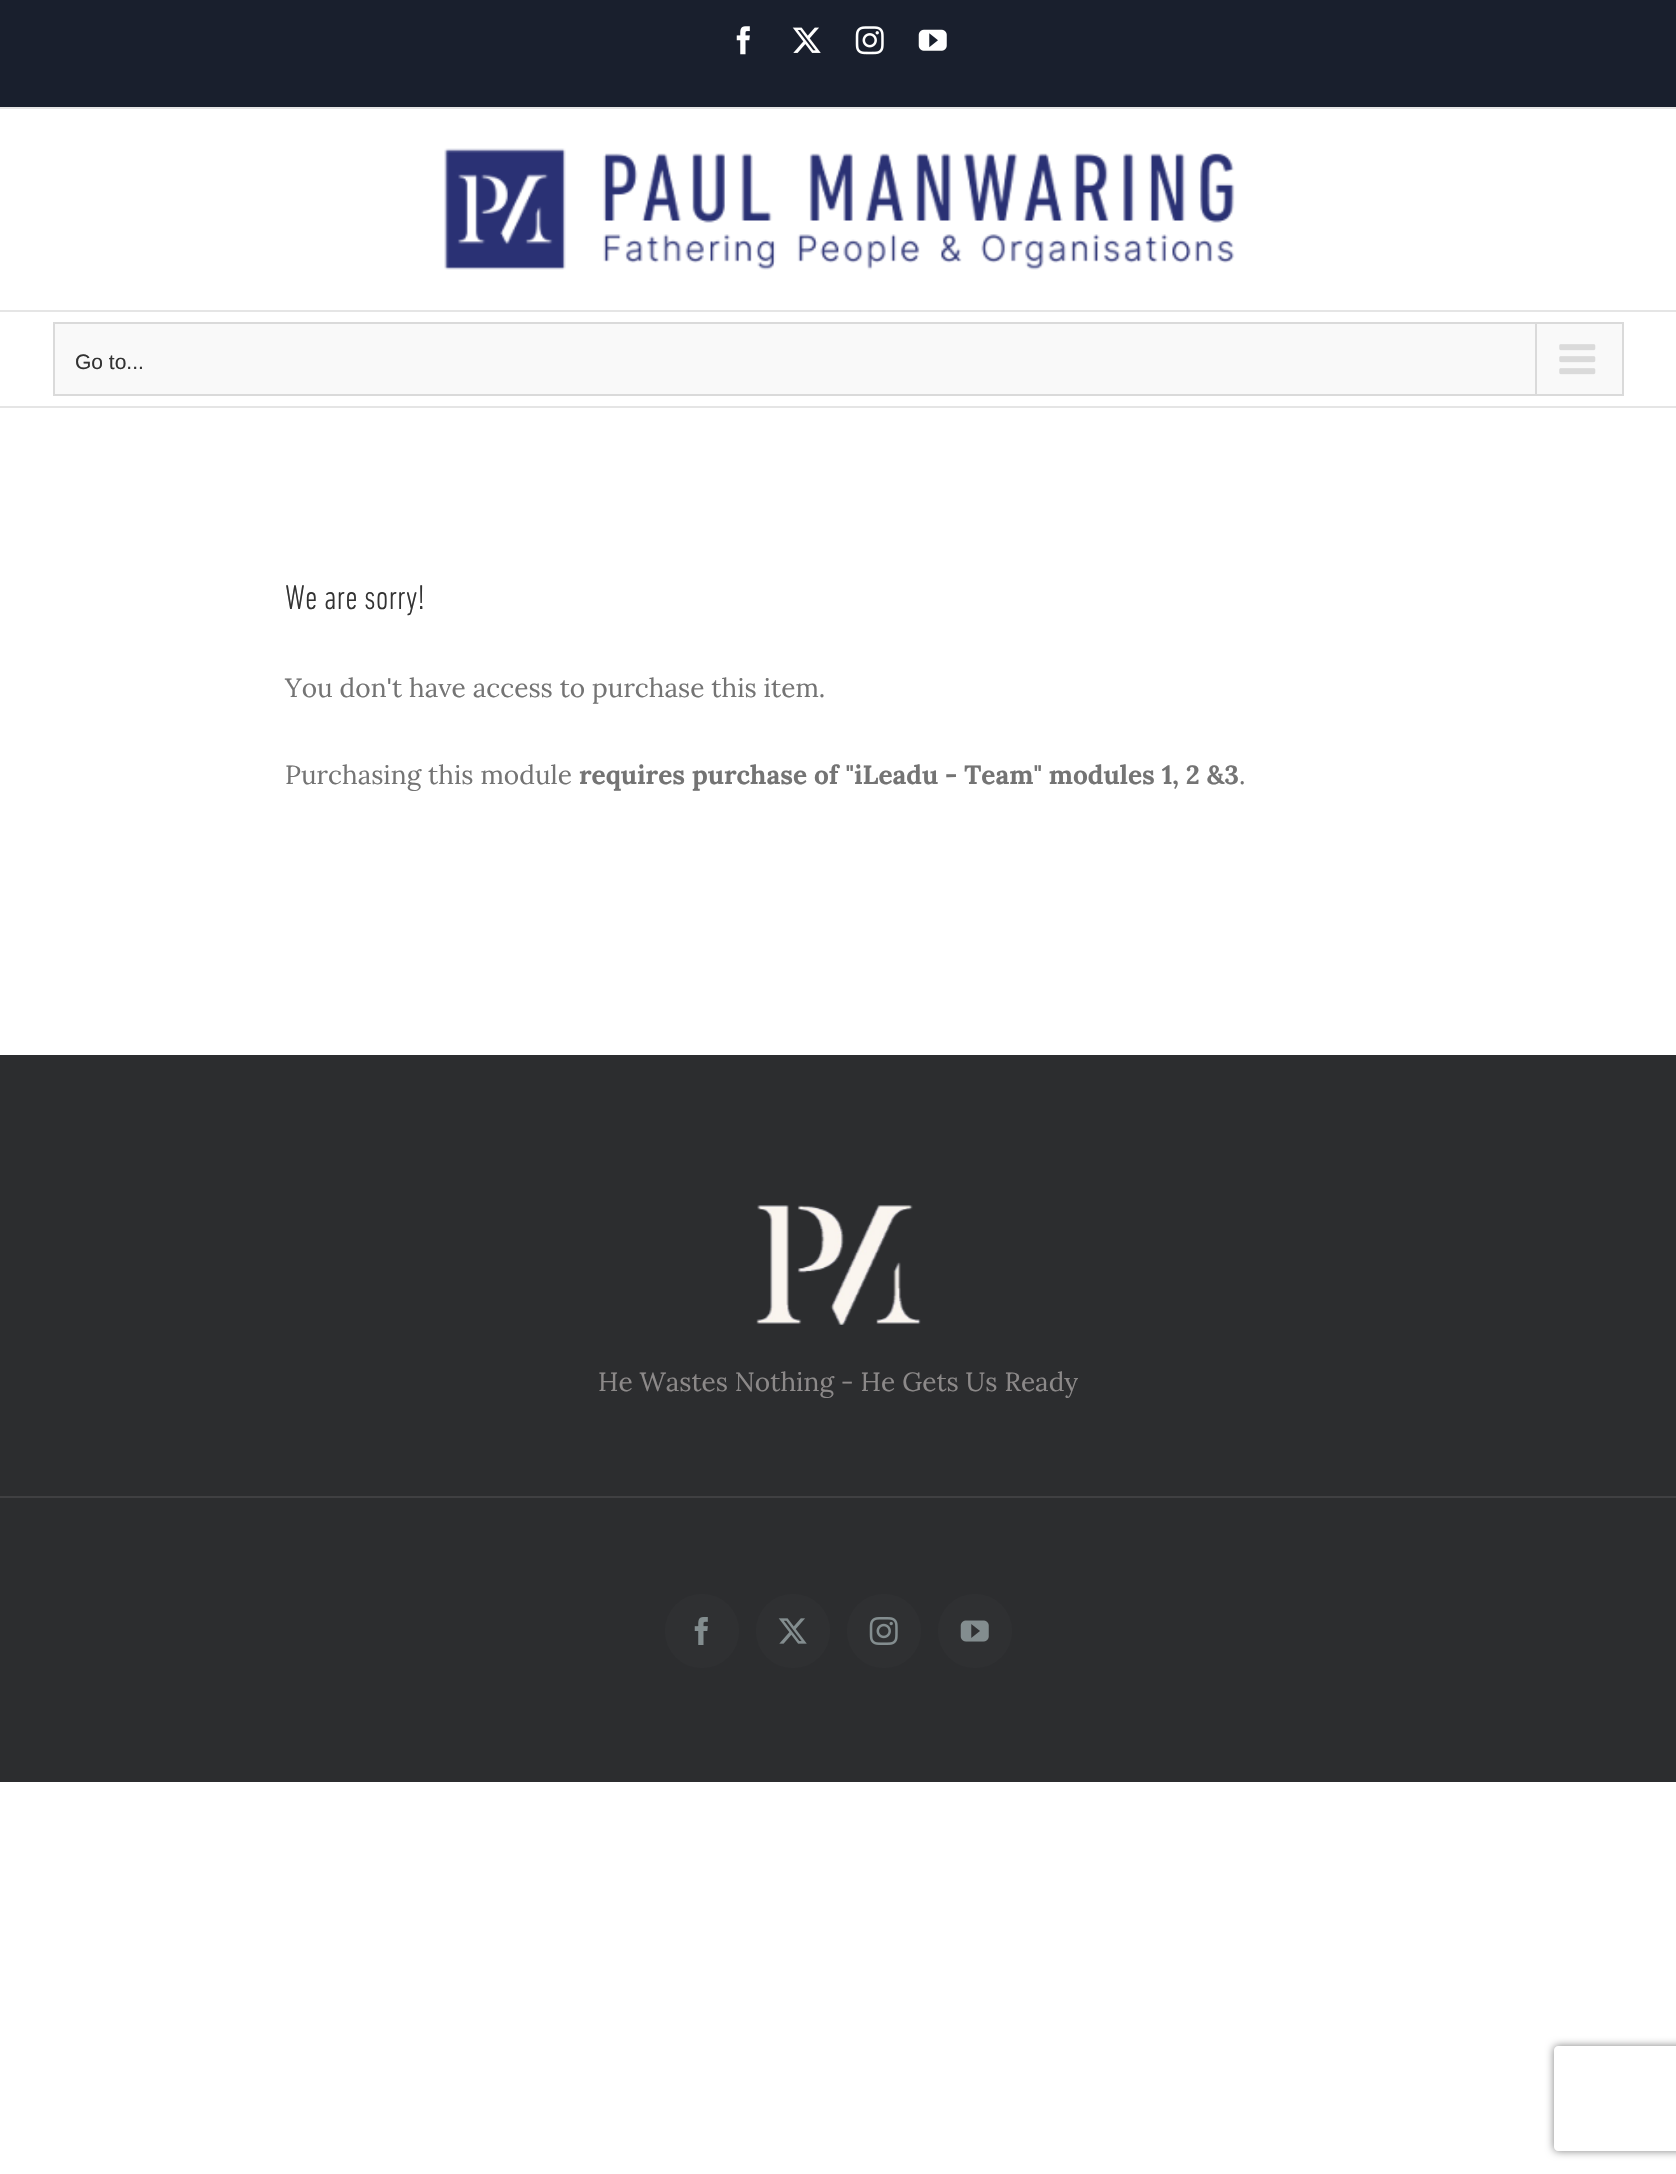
void draw(SkCanvas* canvas) {
    SkPaint paint;
    paint.setAntiAlias(true);
    auto face = [&](const char* family, int weight, float size, bool italic = false) {
        SkFontStyle style(weight, SkFontStyle::kNormal_Width,
            italic ? SkFontStyle::kItalic_Slant : SkFontStyle::kUpright_Slant);
        SkFont result(fontMgr->matchFamilyStyle(family, style), size);
        result.setSubpixel(true);
        return result;
    };
    auto write = [&](const char* s, float x, float y, const SkFont& font, SkColor color) {
        SkPaint ink(SkColor4f::FromColor(color));
        ink.setAntiAlias(true);
        canvas->drawString(s, x, y, font, ink);
    };
    auto block = [&](float x, float y, float w, float h, SkColor color) {
        SkPaint ink(SkColor4f::FromColor(color));
        ink.setAntiAlias(true);
        canvas->drawRect(SkRect::MakeXYWH(x, y, w, h), ink);
    };
    auto paste = [&](const char* path, float x, float y, float w, float h) {
        auto image = SkImages::DeferredFromEncodedData(SkData::MakeFromFileName(path));
        canvas->drawImageRect(image, SkRect::MakeXYWH(x, y, w, h), SkSamplingOptions());
    };
    canvas->clear(SK_ColorWHITE);
    block(0, 0, 1676, 107, SkColorSetRGB(25, 31, 45));
    block(0, 107, 1676, 2, SkColorSetRGB(229, 229, 229));
    paste("pic1.png", 736, 26, 14, 29);
    paste("pic2.png", 792, 27, 29, 26);
    paste("pic3.png", 855, 26, 29, 29);
    paste("pic4.png", 918, 29, 29, 22);
    block(0, 310, 1676, 2, SkColorSetRGB(229, 229, 229));
    paste("pic5.png", 444, 148, 791, 122);
    block(0, 406, 1676, 2, SkColorSetRGB(229, 229, 229));
    paint.setColor(SkColorSetRGB(249, 249, 249));
    canvas->drawRect(SkRect::MakeXYWH(54, 323, 1569, 72), paint);
    paint.setStyle(SkPaint::kStroke_Style);
    paint.setStrokeWidth(2);
    paint.setColor(SkColorSetRGB(218, 218, 218));
    canvas->drawRect(SkRect::MakeXYWH(54, 323, 1569, 72), paint);
    auto kFont1 = face("Liberation Sans", 400, 21);
    write("Go to...", 75, 369, kFont1, SkColorSetRGB(51, 51, 51));
    block(1535, 324, 2, 70, SkColorSetRGB(218, 218, 218));
    paste("pic6.png", 1559, 344, 37, 31);
    auto kFont2 = face("DIN Next", 300, 35);
    write("We are sorry!", 285, 609, kFont2, SkColorSetRGB(51, 51, 51));
    auto kFont3 = face("Lora", 400, 26.25f);
    write("You don't have access to purchase this item.", 285, 697, kFont3, SkColorSetRGB(116, 116, 116));
    write("Purchasing this module", 285, 784, kFont3, SkColorSetRGB(116, 116, 116));
    auto kFont4 = face("Lora", 700, 26.25f);
    write("requires purchase of \"iLeadu - Team\" modules 1, 2 &3", 579, 784, kFont4, SkColorSetRGB(116, 116, 116));
    write(".", 1239, 784, kFont3, SkColorSetRGB(116, 116, 116));
    block(0, 1055, 1676, 441, SkColorSetRGB(44, 45, 47));
    paste("pic7.png", 756, 1205, 165, 120);
    write("He Wastes Nothing - He Gets Us Ready", 598, 1391, kFont3, SkColorSetRGB(140, 137, 137));
    block(0, 1498, 1676, 284, SkColorSetRGB(44, 45, 47));
    block(0, 1496, 1676, 2, SkColorSetRGB(64, 64, 66));
    paint.setStyle(SkPaint::kFill_Style);
    paint.setColor(SkColorSetRGB(47, 48, 50));
    canvas->drawCircle(702, 1631, 37, paint);
    paste("pic8.png", 694, 1617, 14, 28);
    canvas->drawCircle(793, 1631, 37, paint);
    paste("pic9.png", 778, 1618, 29, 26);
    canvas->drawCircle(884, 1631, 37, paint);
    paste("pic10.png", 869, 1617, 29, 28);
    canvas->drawCircle(975, 1631, 37, paint);
    paste("pic11.png", 960, 1620, 29, 22);
    canvas->save();
    canvas->clipPath(SkPathBuilder(SkPathFillType::kEvenOdd).moveTo(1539, 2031).lineTo(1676, 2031).lineTo(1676, 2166).lineTo(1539, 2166).close().moveTo(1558, 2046).lineTo(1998, 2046).cubicTo(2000, 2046, 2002, 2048, 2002, 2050).lineTo(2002, 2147).cubicTo(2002, 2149, 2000, 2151, 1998, 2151).lineTo(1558, 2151).cubicTo(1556, 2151, 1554, 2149, 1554, 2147).lineTo(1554, 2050).cubicTo(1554, 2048, 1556, 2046, 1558, 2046).close().detach(), true);
    paint.setColor(SkColorSetRGB(128, 128, 128));
    paint.setMaskFilter(SkMaskFilter::MakeBlur(kNormal_SkBlurStyle, 4.5f));
    canvas->drawRoundRect(SkRect::MakeXYWH(1554, 2046, 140, 105), 4, 4, paint);
    paint.setMaskFilter(nullptr);
    canvas->restore();
}
